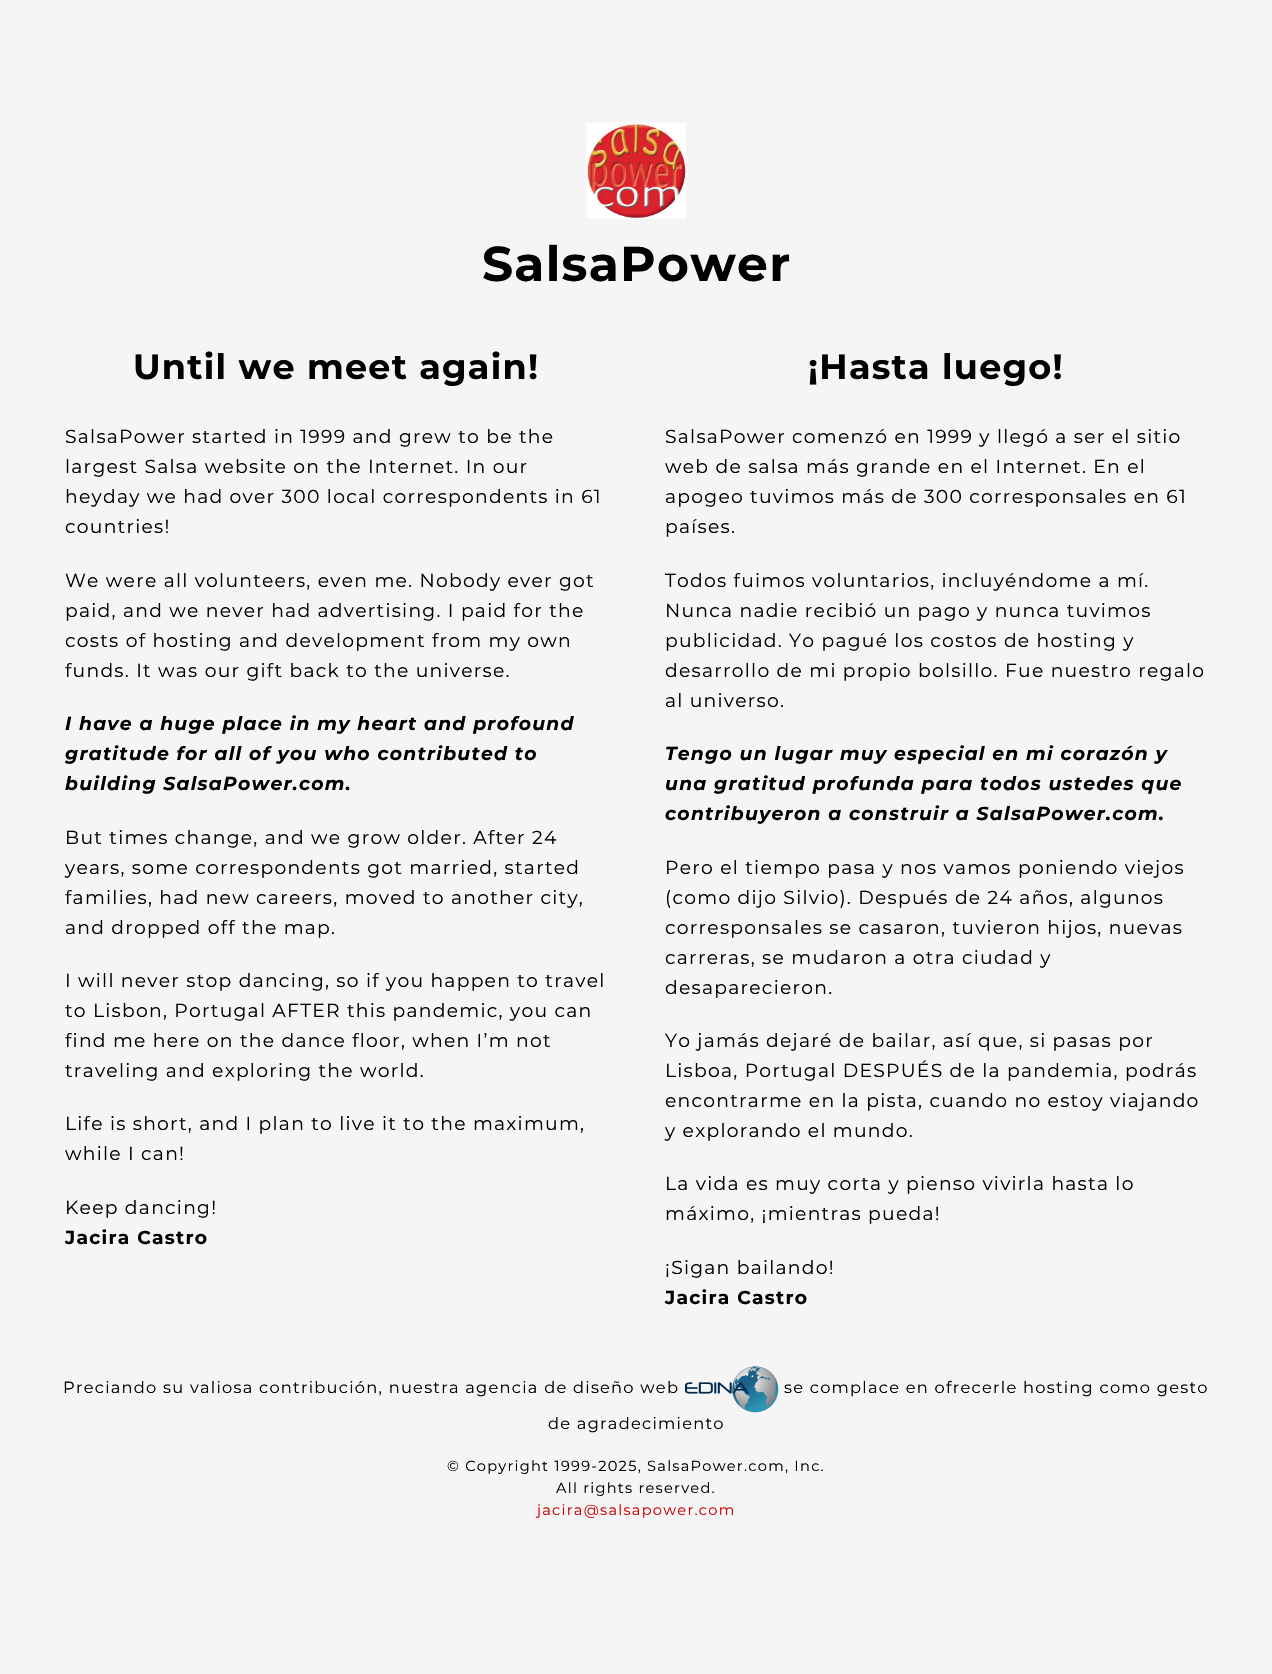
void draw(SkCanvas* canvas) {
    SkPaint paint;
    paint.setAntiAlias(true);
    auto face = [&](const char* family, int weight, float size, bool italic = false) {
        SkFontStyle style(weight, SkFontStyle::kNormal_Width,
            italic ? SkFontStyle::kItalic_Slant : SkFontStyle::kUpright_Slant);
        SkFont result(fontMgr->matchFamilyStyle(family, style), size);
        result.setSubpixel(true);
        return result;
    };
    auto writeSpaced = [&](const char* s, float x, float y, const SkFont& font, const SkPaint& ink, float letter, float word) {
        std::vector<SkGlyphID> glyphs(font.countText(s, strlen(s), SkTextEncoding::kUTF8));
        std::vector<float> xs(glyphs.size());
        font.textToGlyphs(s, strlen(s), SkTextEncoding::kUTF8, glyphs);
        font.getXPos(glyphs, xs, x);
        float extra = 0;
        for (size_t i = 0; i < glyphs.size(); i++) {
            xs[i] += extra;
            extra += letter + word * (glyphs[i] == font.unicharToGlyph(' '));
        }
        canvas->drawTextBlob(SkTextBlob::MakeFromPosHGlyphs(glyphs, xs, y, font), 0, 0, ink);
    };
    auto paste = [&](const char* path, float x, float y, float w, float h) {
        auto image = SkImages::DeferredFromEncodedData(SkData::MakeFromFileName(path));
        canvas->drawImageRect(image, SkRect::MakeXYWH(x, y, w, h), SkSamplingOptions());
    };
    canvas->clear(SkColorSetRGB(245, 245, 245));
    paste("pic1.png", 586, 122, 100, 97);
    auto kFont1 = face("Montserrat", 700, 48.75f);
    paint.setColor(SK_ColorBLACK);
    writeSpaced("SalsaPower", 482, 281, kFont1, paint, 1.25f, 0);
    auto kFont2 = face("Montserrat", 700, 35);
    writeSpaced("Until we meet again!", 133, 379, kFont2, paint, 1.25f, 0);
    auto kFont3 = face("Montserrat", 400, 18.75f);
    writeSpaced("SalsaPower started in 1999 and grew to be the", 65, 443, kFont3, paint, 1.25f, 0);
    writeSpaced("largest Salsa website on the Internet. In our", 65, 473, kFont3, paint, 1.25f, 0);
    writeSpaced("heyday we had over 300 local correspondents in 61", 65, 503, kFont3, paint, 1.25f, 0);
    writeSpaced("countries!", 65, 533, kFont3, paint, 1.25f, 0);
    writeSpaced("We were all volunteers, even me. Nobody ever got", 65, 587, kFont3, paint, 1.25f, 0);
    writeSpaced("paid, and we never had advertising. I paid for the", 65, 617, kFont3, paint, 1.25f, 0);
    writeSpaced("costs of hosting and development from my own", 65, 647, kFont3, paint, 1.25f, 0);
    writeSpaced("funds. It was our gift back to the universe.", 65, 677, kFont3, paint, 1.25f, 0);
    auto kFont4 = face("Montserrat", 700, 18.75f, true);
    writeSpaced("I have a huge place in my heart and profound", 65, 730, kFont4, paint, 1.25f, 0);
    writeSpaced("gratitude for all of you who contributed to", 65, 760, kFont4, paint, 1.25f, 0);
    writeSpaced("building SalsaPower.com.", 65, 790, kFont4, paint, 1.25f, 0);
    writeSpaced("But times change, and we grow older. After 24", 65, 844, kFont3, paint, 1.25f, 0);
    writeSpaced("years, some correspondents got married, started", 65, 874, kFont3, paint, 1.25f, 0);
    writeSpaced("families, had new careers, moved to another city,", 65, 904, kFont3, paint, 1.25f, 0);
    writeSpaced("and dropped off the map.", 65, 934, kFont3, paint, 1.25f, 0);
    writeSpaced("I will never stop dancing, so if you happen to travel", 65, 987, kFont3, paint, 1.25f, 0);
    writeSpaced("to Lisbon, Portugal AFTER this pandemic, you can", 65, 1017, kFont3, paint, 1.25f, 0);
    writeSpaced("find me here on the dance floor, when I’m not", 65, 1047, kFont3, paint, 1.25f, 0);
    writeSpaced("traveling and exploring the world.", 65, 1077, kFont3, paint, 1.25f, 0);
    writeSpaced("Life is short, and I plan to live it to the maximum,", 65, 1130, kFont3, paint, 1.25f, 0);
    writeSpaced("while I can!", 65, 1160, kFont3, paint, 1.25f, 0);
    writeSpaced("Keep dancing!", 65, 1214, kFont3, paint, 1.25f, 0);
    auto kFont5 = face("Montserrat", 700, 18.75f);
    writeSpaced("Jacira Castro", 65, 1244, kFont5, paint, 1.25f, 0);
    writeSpaced("¡Hasta luego!", 808, 379, kFont2, paint, 1.25f, 0);
    writeSpaced("SalsaPower comenzó en 1999 y llegó a ser el sitio", 665, 443, kFont3, paint, 1.25f, 0);
    writeSpaced("web de salsa más grande en el Internet. En el", 665, 473, kFont3, paint, 1.25f, 0);
    writeSpaced("apogeo tuvimos más de 300 corresponsales en 61", 665, 503, kFont3, paint, 1.25f, 0);
    writeSpaced("países.", 665, 533, kFont3, paint, 1.25f, 0);
    writeSpaced("Todos fuimos voluntarios, incluyéndome a mí.", 665, 587, kFont3, paint, 1.25f, 0);
    writeSpaced("Nunca nadie recibió un pago y nunca tuvimos", 665, 617, kFont3, paint, 1.25f, 0);
    writeSpaced("publicidad. Yo pagué los costos de hosting y", 665, 647, kFont3, paint, 1.25f, 0);
    writeSpaced("desarrollo de mi propio bolsillo. Fue nuestro regalo", 665, 677, kFont3, paint, 1.25f, 0);
    writeSpaced("al universo.", 665, 707, kFont3, paint, 1.25f, 0);
    writeSpaced("Tengo un lugar muy especial en mi corazón y", 665, 760, kFont4, paint, 1.25f, 0);
    writeSpaced("una gratitud profunda para todos ustedes que", 665, 790, kFont4, paint, 1.25f, 0);
    writeSpaced("contribuyeron a construir a SalsaPower.com.", 665, 820, kFont4, paint, 1.25f, 0);
    writeSpaced("Pero el tiempo pasa y nos vamos poniendo viejos", 665, 874, kFont3, paint, 1.25f, 0);
    writeSpaced("(como dijo Silvio). Después de 24 años, algunos", 665, 904, kFont3, paint, 1.25f, 0);
    writeSpaced("corresponsales se casaron, tuvieron hijos, nuevas", 665, 934, kFont3, paint, 1.25f, 0);
    writeSpaced("carreras, se mudaron a otra ciudad y", 665, 964, kFont3, paint, 1.25f, 0);
    writeSpaced("desaparecieron.", 665, 994, kFont3, paint, 1.25f, 0);
    writeSpaced("Yo jamás dejaré de bailar, así que, si pasas por", 665, 1047, kFont3, paint, 1.25f, 0);
    writeSpaced("Lisboa, Portugal DESPUÉS de la pandemia, podrás", 665, 1077, kFont3, paint, 1.25f, 0);
    writeSpaced("encontrarme en la pista, cuando no estoy viajando", 665, 1107, kFont3, paint, 1.25f, 0);
    writeSpaced("y explorando el mundo.", 665, 1137, kFont3, paint, 1.25f, 0);
    writeSpaced("La vida es muy corta y pienso vivirla hasta lo", 665, 1190, kFont3, paint, 1.25f, 0);
    writeSpaced("máximo, ¡mientras pueda!", 665, 1220, kFont3, paint, 1.25f, 0);
    writeSpaced("¡Sigan bailando!", 665, 1274, kFont3, paint, 1.25f, 0);
    writeSpaced("Jacira Castro", 665, 1304, kFont5, paint, 1.25f, 0);
    auto kFont6 = face("Montserrat", 400, 16.25f);
    writeSpaced("Preciando su valiosa contribución, nuestra agencia de diseño web", 63, 1393, kFont6, paint, 1.25f, 0);
    paste("pic2.png", 685, 1366, 94, 47);
    writeSpaced("se complace en ofrecerle hosting como gesto", 784, 1393, kFont6, paint, 1.25f, 0);
    writeSpaced("de agradecimiento", 548, 1429, kFont6, paint, 1.25f, 0);
    auto kFont7 = face("Montserrat", 400, 14.6f);
    writeSpaced("© Copyright 1999-2025, SalsaPower.com, Inc.", 447, 1471, kFont7, paint, 1.25f, 0);
    writeSpaced("All rights reserved.", 556, 1493, kFont7, paint, 1.25f, 0);
    paint.setColor(SkColorSetRGB(204, 0, 0));
    writeSpaced("jacira@salsapower.com", 537, 1515, kFont7, paint, 1.25f, 0);
}
